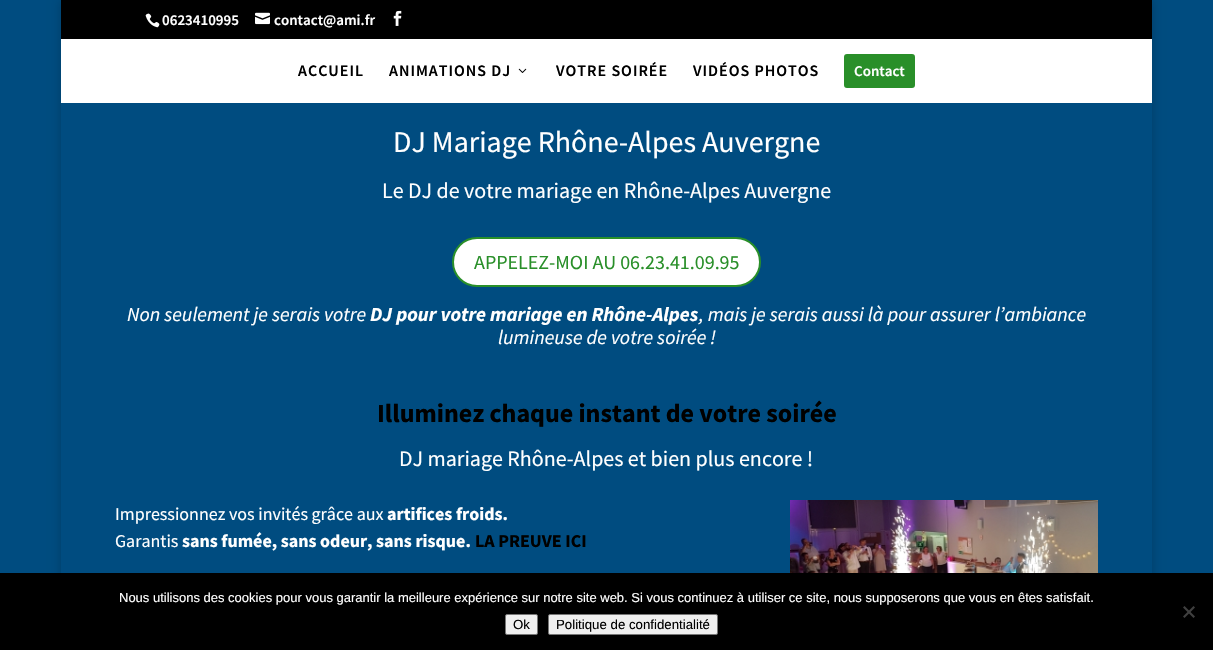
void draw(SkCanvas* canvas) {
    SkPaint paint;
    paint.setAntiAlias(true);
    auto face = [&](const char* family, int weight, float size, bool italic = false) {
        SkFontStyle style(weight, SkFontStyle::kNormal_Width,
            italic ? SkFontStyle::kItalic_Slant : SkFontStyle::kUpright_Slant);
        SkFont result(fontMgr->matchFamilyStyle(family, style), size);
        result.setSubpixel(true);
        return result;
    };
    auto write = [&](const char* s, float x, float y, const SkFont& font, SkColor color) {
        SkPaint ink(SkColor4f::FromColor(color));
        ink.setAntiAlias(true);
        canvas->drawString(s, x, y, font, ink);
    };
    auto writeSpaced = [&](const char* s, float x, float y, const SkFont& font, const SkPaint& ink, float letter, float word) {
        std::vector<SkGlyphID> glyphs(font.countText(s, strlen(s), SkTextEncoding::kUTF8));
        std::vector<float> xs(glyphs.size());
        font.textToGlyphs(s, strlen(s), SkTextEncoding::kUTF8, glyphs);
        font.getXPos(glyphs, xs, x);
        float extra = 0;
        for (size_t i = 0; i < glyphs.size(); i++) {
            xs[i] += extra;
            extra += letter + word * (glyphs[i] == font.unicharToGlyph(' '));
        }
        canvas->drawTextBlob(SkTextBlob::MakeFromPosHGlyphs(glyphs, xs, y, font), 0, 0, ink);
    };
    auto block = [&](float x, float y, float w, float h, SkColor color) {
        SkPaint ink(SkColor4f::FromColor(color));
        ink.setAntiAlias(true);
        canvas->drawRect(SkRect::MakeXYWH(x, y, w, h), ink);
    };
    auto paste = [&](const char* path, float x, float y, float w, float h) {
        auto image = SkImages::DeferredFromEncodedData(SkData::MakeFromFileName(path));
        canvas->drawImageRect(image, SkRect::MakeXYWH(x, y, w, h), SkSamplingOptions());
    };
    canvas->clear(SkColorSetRGB(0, 76, 128));
    canvas->save();
    canvas->clipPath(SkPathBuilder(SkPathFillType::kEvenOdd).moveTo(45, 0).lineTo(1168, 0).lineTo(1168, 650).lineTo(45, 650).close().moveTo(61, 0).lineTo(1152, 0).lineTo(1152, 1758).lineTo(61, 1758).close().detach(), true);
    paint.setColor(SkColorSetARGB(51, 0, 0, 0));
    paint.setMaskFilter(SkMaskFilter::MakeBlur(kNormal_SkBlurStyle, 5));
    canvas->drawRect(SkRect::MakeXYWH(61, 0, 1091, 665), paint);
    paint.setMaskFilter(nullptr);
    canvas->restore();
    block(61, 0, 1091, 39, SK_ColorBLACK);
    paste("pic1.png", 145, 13, 15, 15);
    auto kFont1 = face("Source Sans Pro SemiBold", 600, 15);
    write("0623410995", 162, 25, kFont1, SK_ColorWHITE);
    paste("pic2.png", 255, 12, 15, 13);
    write("contact@ami.fr", 274, 25, kFont1, SK_ColorWHITE);
    paste("pic3.png", 393, 10, 9, 16);
    block(61, 39, 1091, 64, SK_ColorWHITE);
    auto kFont2 = face("Source Sans Pro SemiBold", 600, 16);
    paint.setColor(SK_ColorBLACK);
    writeSpaced("ACCUEIL", 298, 76, kFont2, paint, 1, 0);
    writeSpaced("ANIMATIONS DJ", 389, 76, kFont2, paint, 1, 0);
    paste("pic4.png", 518, 68, 9, 5);
    writeSpaced("VOTRE SOIRÉE", 556, 76, kFont2, paint, 1, 0);
    writeSpaced("VIDÉOS PHOTOS", 693, 76, kFont2, paint, 1, 0);
    paint.setColor(SkColorSetRGB(41, 143, 41));
    canvas->drawRoundRect(SkRect::MakeXYWH(845, 55, 69, 32), 2, 2, paint);
    paint.setStyle(SkPaint::kStroke_Style);
    paint.setStrokeWidth(2);
    canvas->drawRoundRect(SkRect::MakeXYWH(845, 55, 69, 32), 2, 2, paint);
    write("Contact", 854, 76, kFont1, SK_ColorWHITE);
    auto kFont3 = face("Source Sans Pro", 400, 30);
    write("DJ Mariage Rhône-Alpes Auvergne", 393, 152, kFont3, SK_ColorWHITE);
    auto kFont4 = face("Source Sans Pro", 400, 22);
    write("Le DJ de votre mariage en Rhône-Alpes Auvergne", 382, 198, kFont4, SK_ColorWHITE);
    paint.setStyle(SkPaint::kFill_Style);
    paint.setColor(SK_ColorWHITE);
    canvas->drawRoundRect(SkRect::MakeXYWH(453, 238, 307, 48), 24, 24, paint);
    paint.setStyle(SkPaint::kStroke_Style);
    paint.setColor(SkColorSetRGB(41, 143, 41));
    canvas->drawRoundRect(SkRect::MakeXYWH(453, 238, 307, 48), 24, 24, paint);
    auto kFont5 = face("Source Sans Pro", 400, 20);
    write("APPELEZ-MOI AU 06.23.41.09.95", 474, 269, kFont5, SkColorSetRGB(41, 143, 41));
    auto kFont6 = face("Source Sans Pro", 400, 20, true);
    write("Non seulement je serais votre", 127, 321, kFont6, SK_ColorWHITE);
    auto kFont7 = face("Source Sans Pro", 700, 20, true);
    write("DJ pour votre mariage en Rhône-Alpes", 370, 321, kFont7, SK_ColorWHITE);
    write(", mais je serais aussi là pour assurer l’ambiance", 699, 321, kFont6, SK_ColorWHITE);
    write("lumineuse de votre soirée !", 498, 344, kFont6, SK_ColorWHITE);
    auto kFont8 = face("Source Sans Pro", 700, 26);
    write("Illuminez chaque instant de votre soirée", 377, 422, kFont8, SK_ColorBLACK);
    write("DJ mariage Rhône-Alpes et bien plus encore !", 399, 466, kFont4, SK_ColorWHITE);
    auto kFont9 = face("Source Sans Pro", 400, 18);
    write("Impressionnez vos invités grâce aux", 115, 520, kFont9, SK_ColorWHITE);
    auto kFont10 = face("Source Sans Pro", 700, 18);
    write("artifices froids.", 387, 520, kFont10, SK_ColorWHITE);
    write("Garantis", 115, 547, kFont9, SK_ColorWHITE);
    write("sans fumée, sans odeur, sans risque.", 182, 547, kFont10, SK_ColorWHITE);
    write("LA PREUVE ICI", 475, 547, kFont10, SK_ColorBLACK);
    paste("pic5.png", 790, 500, 308, 73);
    block(0, 573, 1213, 77, SK_ColorBLACK);
    auto kFont11 = face("Liberation Sans", 400, 13);
    write("Nous utilisons des cookies pour vous garantir la meilleure expérience sur notre site web. Si vous continuez à utiliser ce site, nous supposerons que vous en êtes satisfait.", 119, 602, kFont11, SK_ColorWHITE);
    paint.setStyle(SkPaint::kFill_Style);
    paint.setColor(SkColorSetRGB(64, 64, 64));
    canvas->drawPath(SkPathBuilder().moveTo(1193.5f, 606).lineTo(1195, 607.5f).lineTo(1184.5f, 618).lineTo(1183, 616.5f).close().detach(), paint);
    canvas->drawPath(SkPathBuilder().moveTo(1183, 607.5f).lineTo(1184.5f, 606).lineTo(1195, 616.5f).lineTo(1193.5f, 618).close().detach(), paint);
    paint.setColor(SkColorSetRGB(239, 239, 239));
    canvas->drawRoundRect(SkRect::MakeXYWH(505.5f, 614.5f, 32, 20), 1.5f, 1.5f, paint);
    paint.setStyle(SkPaint::kStroke_Style);
    paint.setStrokeWidth(1);
    paint.setColor(SkColorSetRGB(118, 118, 118));
    canvas->drawRoundRect(SkRect::MakeXYWH(505.5f, 614.5f, 32, 20), 1.5f, 1.5f, paint);
    auto kFont12 = face("Liberation Sans", 400, 13.25f);
    write("Ok", 513, 629, kFont12, SK_ColorBLACK);
    paint.setStyle(SkPaint::kFill_Style);
    paint.setColor(SkColorSetRGB(239, 239, 239));
    canvas->drawRoundRect(SkRect::MakeXYWH(548.5f, 614.5f, 169, 20), 1.5f, 1.5f, paint);
    paint.setStyle(SkPaint::kStroke_Style);
    paint.setColor(SkColorSetRGB(118, 118, 118));
    canvas->drawRoundRect(SkRect::MakeXYWH(548.5f, 614.5f, 169, 20), 1.5f, 1.5f, paint);
    write("Politique de confidentialité", 556, 629, kFont12, SK_ColorBLACK);
}
